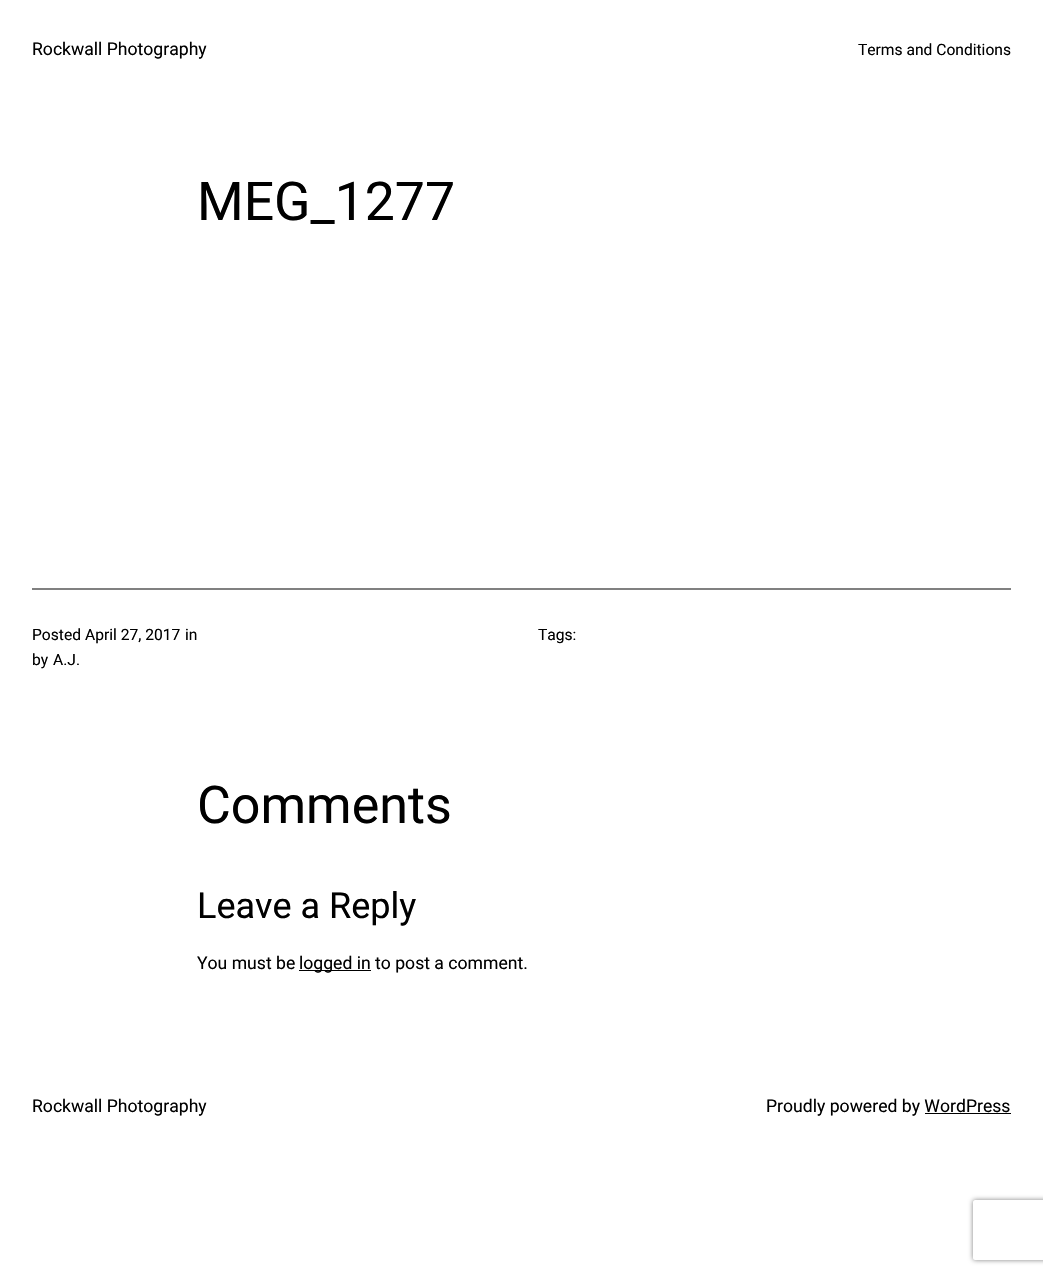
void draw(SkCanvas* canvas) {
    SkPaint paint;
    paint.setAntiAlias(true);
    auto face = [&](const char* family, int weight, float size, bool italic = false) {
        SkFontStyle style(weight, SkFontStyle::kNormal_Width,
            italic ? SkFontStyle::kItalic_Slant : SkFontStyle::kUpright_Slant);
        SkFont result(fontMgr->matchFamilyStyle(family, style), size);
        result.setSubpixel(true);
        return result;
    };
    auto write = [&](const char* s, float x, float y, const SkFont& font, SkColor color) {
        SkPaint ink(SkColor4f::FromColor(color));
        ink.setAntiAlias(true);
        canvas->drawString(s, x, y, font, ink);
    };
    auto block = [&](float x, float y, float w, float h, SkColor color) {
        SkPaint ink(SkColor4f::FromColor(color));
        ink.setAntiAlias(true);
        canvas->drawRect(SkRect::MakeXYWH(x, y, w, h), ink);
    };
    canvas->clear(SK_ColorWHITE);
    auto kFont1 = face("Roboto", 400, 17.6f);
    write("Rockwall Photography", 32, 55, kFont1, SK_ColorBLACK);
    auto kFont2 = face("Roboto", 400, 15.6f);
    write("Terms and Conditions", 858, 55, kFont2, SK_ColorBLACK);
    auto kFont3 = face("Roboto", 400, 53.5f);
    write("MEG_1277", 197, 220, kFont3, SK_ColorBLACK);
    block(32, 588, 979, 2, SkColorSetRGB(128, 128, 128));
    write("Posted", 32, 640, kFont2, SK_ColorBLACK);
    write("April 27, 2017", 85, 640, kFont2, SK_ColorBLACK);
    write("in", 185, 640, kFont2, SK_ColorBLACK);
    write("by", 32, 665, kFont2, SK_ColorBLACK);
    write("A.J.", 53, 665, kFont2, SK_ColorBLACK);
    write("Tags:", 538, 640, kFont2, SK_ColorBLACK);
    auto kFont4 = face("Roboto", 400, 52);
    write("Comments", 197, 823, kFont4, SK_ColorBLACK);
    auto kFont5 = face("Roboto", 400, 36);
    write("Leave a Reply", 197, 918, kFont5, SK_ColorBLACK);
    write("You must be", 197, 969, kFont1, SK_ColorBLACK);
    block(299, 970, 72, 1, SK_ColorBLACK);
    write("logged in to post a comment.", 299, 969, kFont1, SK_ColorBLACK);
    write("Rockwall Photography", 32, 1112, kFont1, SK_ColorBLACK);
    write("Proudly powered by WordPress", 766, 1112, kFont1, SK_ColorBLACK);
    block(925, 1113, 86, 1, SK_ColorBLACK);
    canvas->save();
    canvas->clipPath(SkPathBuilder(SkPathFillType::kEvenOdd).moveTo(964, 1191).lineTo(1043, 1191).lineTo(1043, 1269).lineTo(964, 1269).close().moveTo(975, 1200).lineTo(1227, 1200).cubicTo(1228, 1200, 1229, 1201, 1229, 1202).lineTo(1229, 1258).cubicTo(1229, 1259, 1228, 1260, 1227, 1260).lineTo(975, 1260).cubicTo(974, 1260, 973, 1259, 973, 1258).lineTo(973, 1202).cubicTo(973, 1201, 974, 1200, 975, 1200).close().detach(), true);
    paint.setColor(SkColorSetRGB(128, 128, 128));
    paint.setMaskFilter(SkMaskFilter::MakeBlur(kNormal_SkBlurStyle, 2.5f));
    canvas->drawRoundRect(SkRect::MakeXYWH(973, 1200, 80, 60), 2, 2, paint);
    paint.setMaskFilter(nullptr);
    canvas->restore();
}
